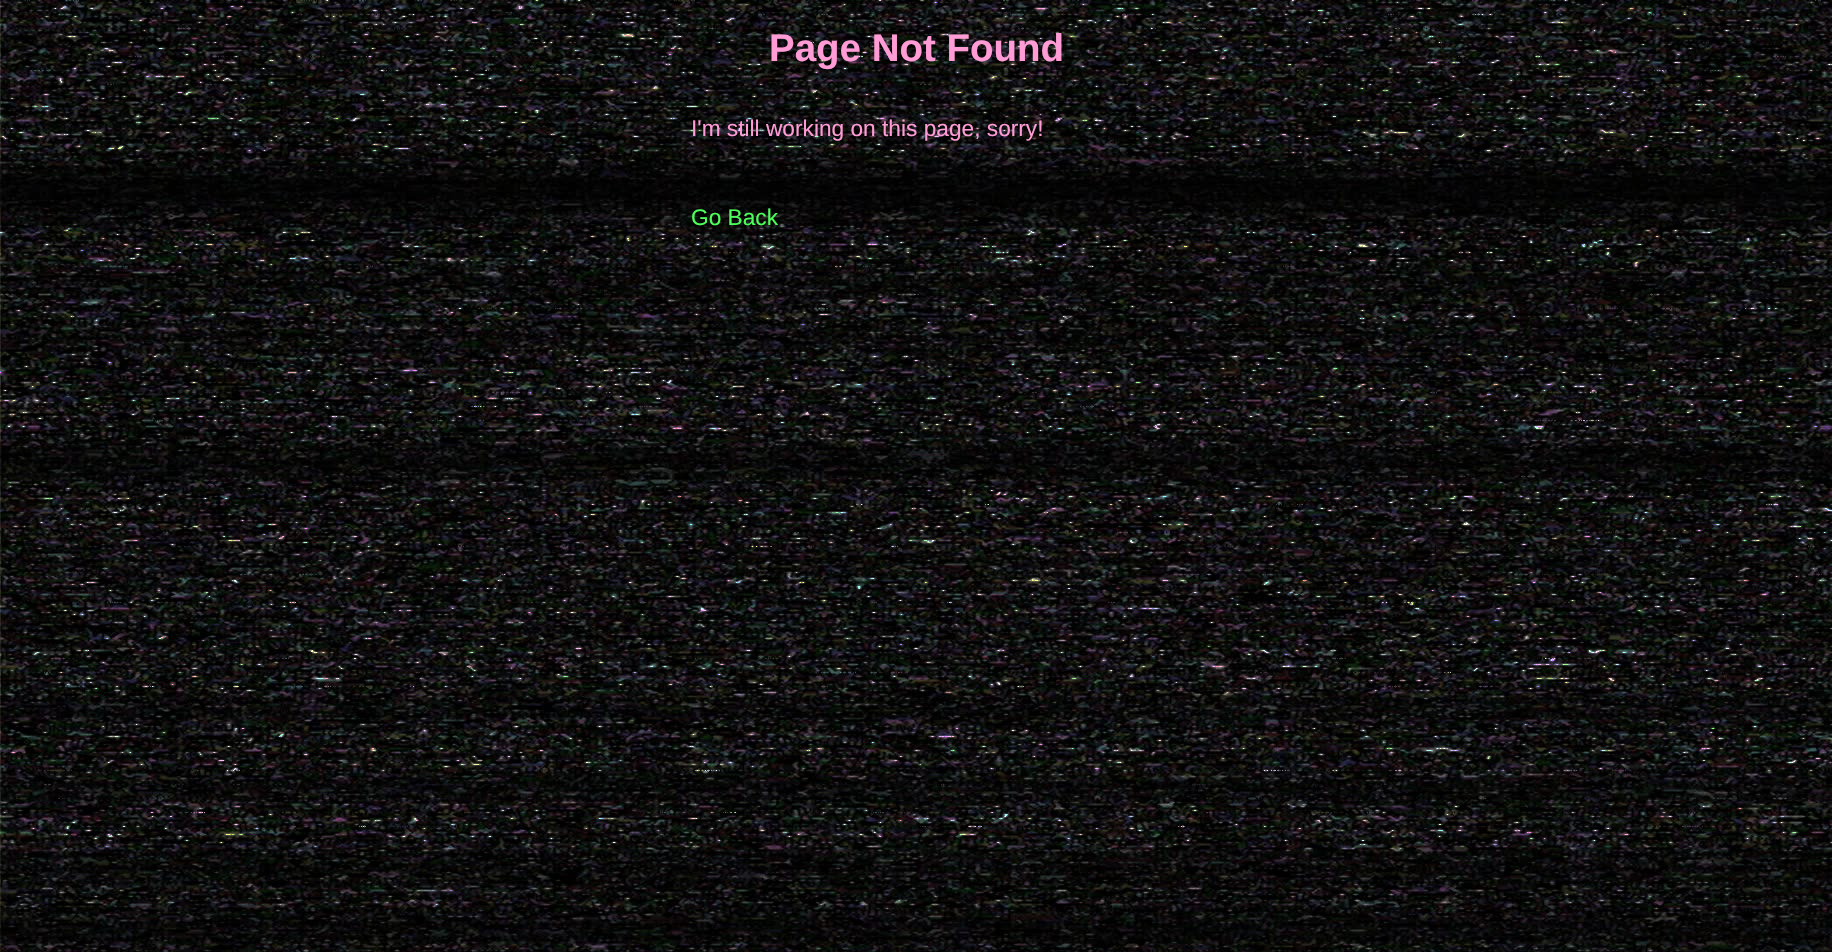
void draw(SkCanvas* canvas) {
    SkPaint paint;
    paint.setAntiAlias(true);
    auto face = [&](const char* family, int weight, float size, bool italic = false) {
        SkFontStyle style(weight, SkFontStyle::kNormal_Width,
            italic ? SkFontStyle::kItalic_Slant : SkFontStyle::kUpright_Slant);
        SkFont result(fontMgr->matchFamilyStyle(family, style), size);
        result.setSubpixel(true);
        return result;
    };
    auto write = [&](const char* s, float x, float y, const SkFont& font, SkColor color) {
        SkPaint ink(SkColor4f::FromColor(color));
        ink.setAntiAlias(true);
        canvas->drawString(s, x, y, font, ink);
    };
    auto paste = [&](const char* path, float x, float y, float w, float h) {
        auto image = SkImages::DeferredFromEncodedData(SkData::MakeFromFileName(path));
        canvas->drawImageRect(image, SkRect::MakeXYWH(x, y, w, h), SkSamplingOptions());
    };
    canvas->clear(SK_ColorWHITE);
    paste("pic1.png", 0, 0, 1832, 952);
    auto kFont1 = face("Liberation Sans", 700, 38.5f);
    write("Page Not Found", 769, 61, kFont1, SkColorSetRGB(255, 155, 213));
    auto kFont2 = face("Liberation Sans", 400, 22.7f);
    write("I'm still working on this page, sorry!", 691, 136, kFont2, SkColorSetRGB(255, 155, 213));
    write("Go Back", 691, 225, kFont2, SkColorSetRGB(77, 255, 91));
}
